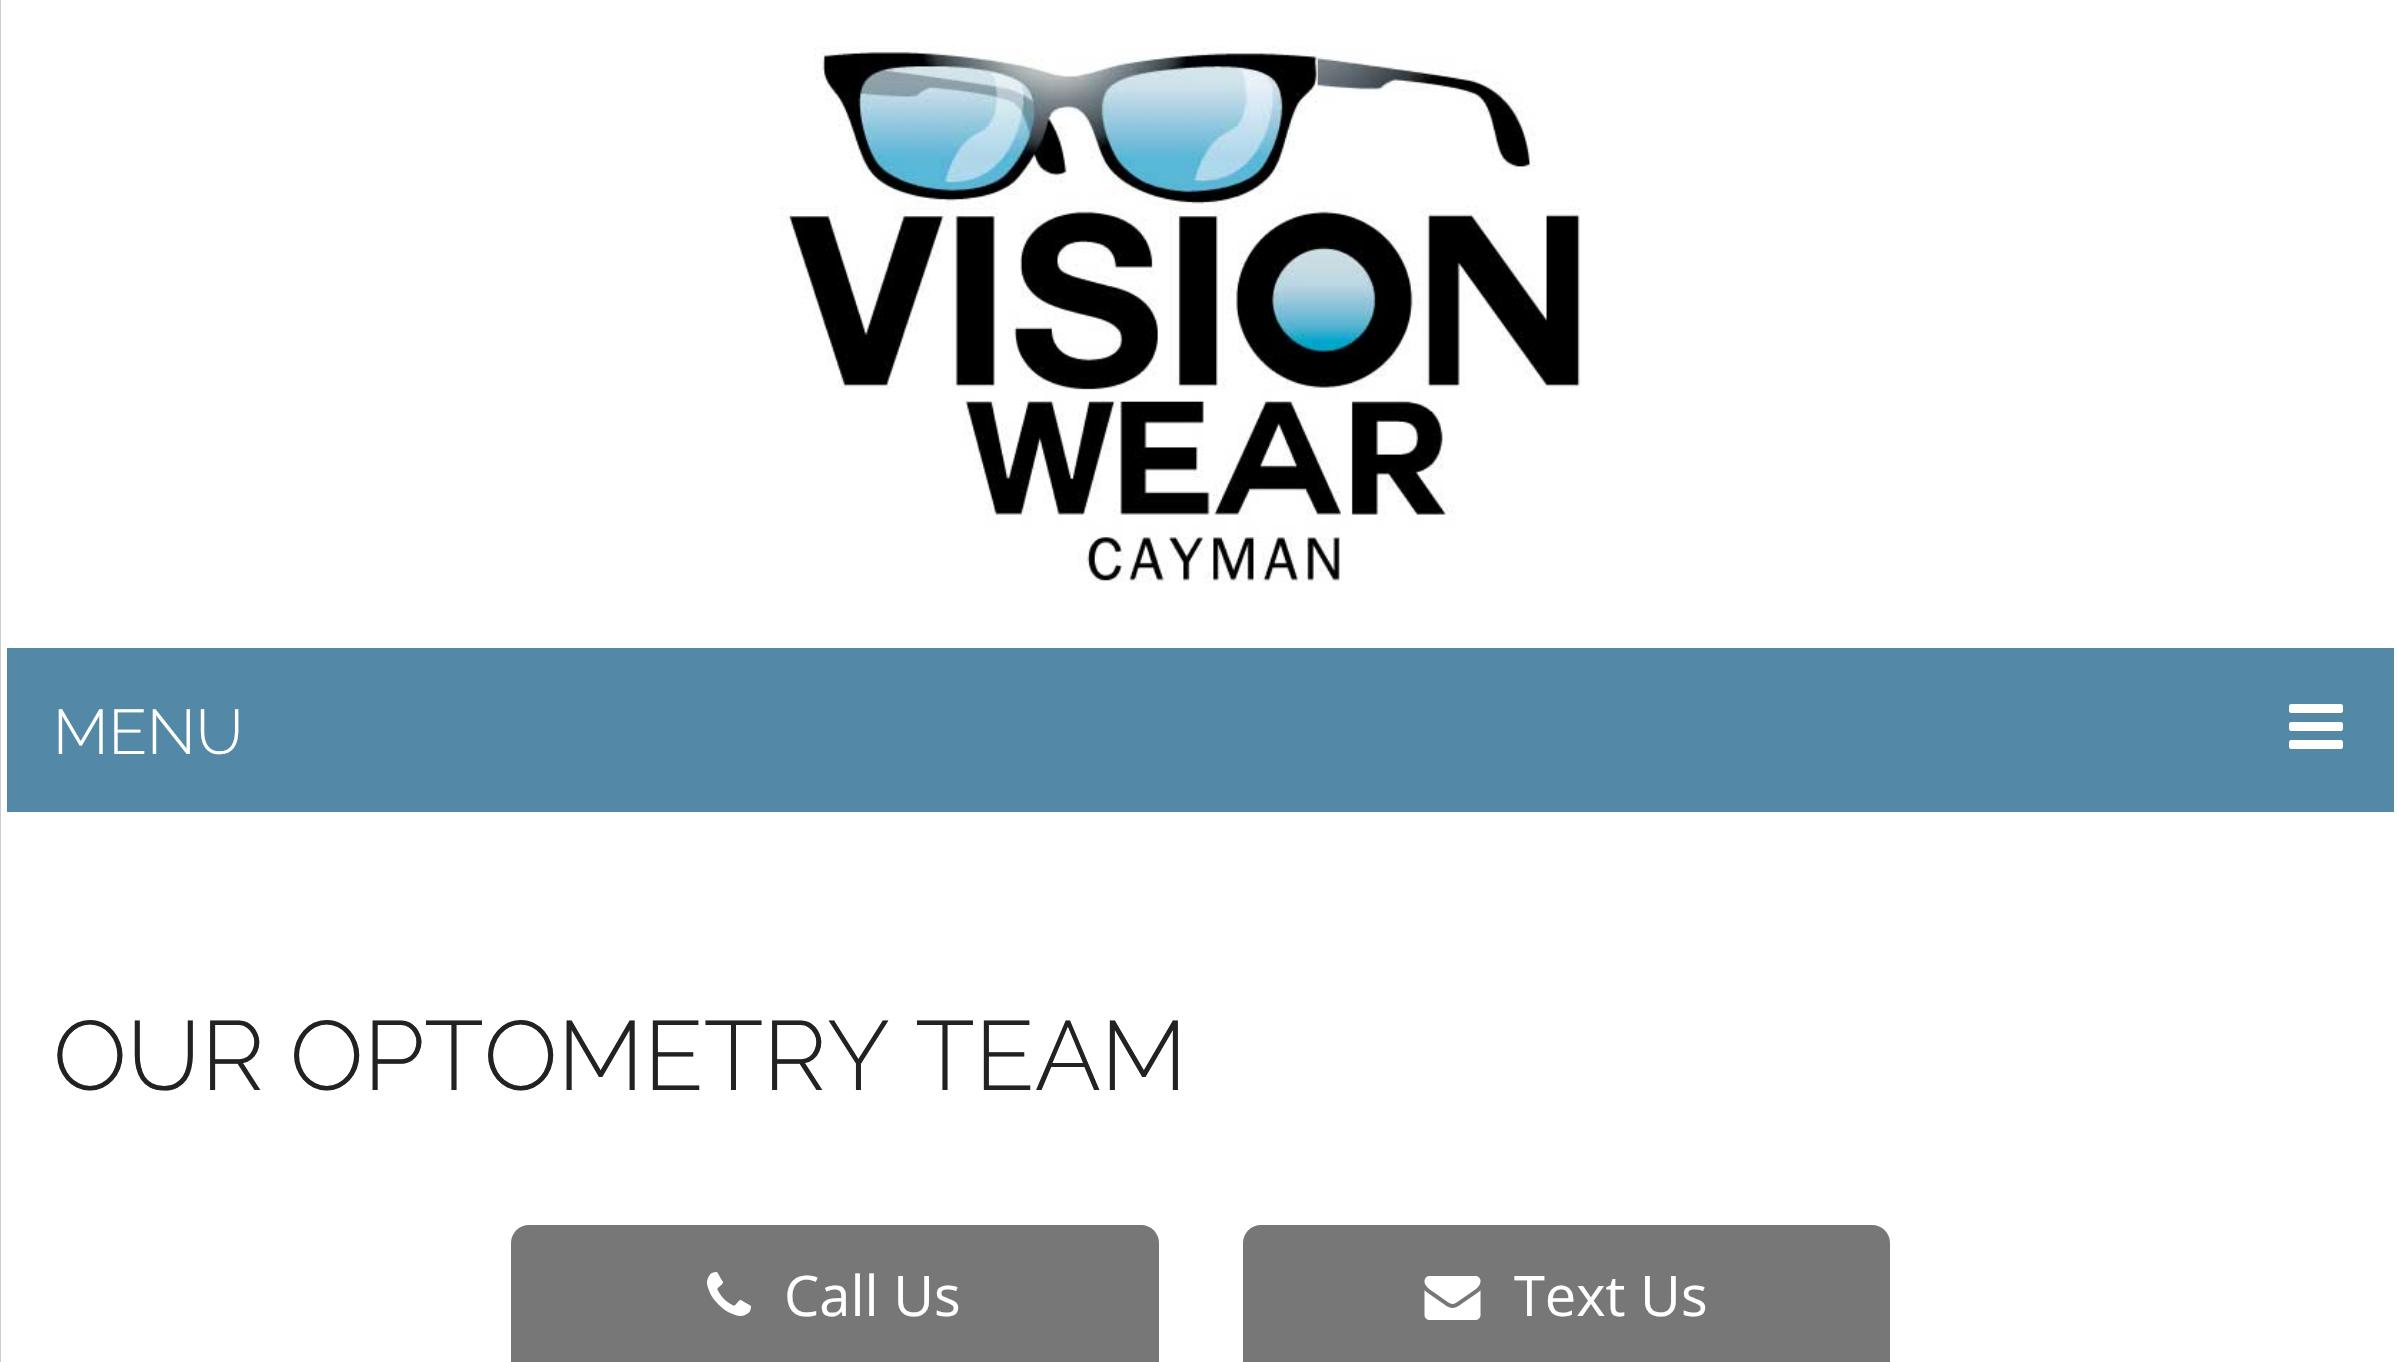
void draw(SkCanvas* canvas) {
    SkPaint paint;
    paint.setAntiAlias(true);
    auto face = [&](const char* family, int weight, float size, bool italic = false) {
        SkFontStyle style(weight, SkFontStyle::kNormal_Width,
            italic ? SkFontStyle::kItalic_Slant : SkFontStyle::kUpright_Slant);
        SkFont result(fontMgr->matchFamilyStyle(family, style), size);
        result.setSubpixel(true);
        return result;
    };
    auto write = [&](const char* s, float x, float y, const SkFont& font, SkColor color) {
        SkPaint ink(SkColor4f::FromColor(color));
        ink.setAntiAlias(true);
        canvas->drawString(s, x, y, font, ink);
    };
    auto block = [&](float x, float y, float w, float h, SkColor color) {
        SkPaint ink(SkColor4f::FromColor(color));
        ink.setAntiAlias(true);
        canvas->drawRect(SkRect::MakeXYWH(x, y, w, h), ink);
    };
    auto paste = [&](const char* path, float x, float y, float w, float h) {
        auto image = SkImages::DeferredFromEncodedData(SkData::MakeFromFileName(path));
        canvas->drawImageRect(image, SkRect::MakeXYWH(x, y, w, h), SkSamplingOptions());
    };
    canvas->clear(SK_ColorWHITE);
    block(0, 0, 1, 1362, SkColorSetRGB(204, 204, 204));
    paste("pic1.png", 780, 46, 801, 537);
    block(7, 648, 2387, 164, SkColorSetRGB(83, 137, 166));
    auto kFont1 = face("Raleway", 300, 63);
    write("MENU", 53, 754, kFont1, SK_ColorWHITE);
    paste("pic2.png", 2289, 704, 54, 45);
    auto kFont2 = face("Raleway", 300, 98);
    write("OUR OPTOMETRY TEAM", 53, 1090, kFont2, SkColorSetRGB(34, 34, 34));
    paint.setColor(SkColorSetRGB(119, 119, 119));
    canvas->drawPath(SkPathBuilder().moveTo(529, 1225).lineTo(1141, 1225).cubicTo(1151, 1225, 1159, 1233, 1159, 1243).lineTo(1159, 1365).lineTo(511, 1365).lineTo(511, 1243).cubicTo(511, 1233, 519, 1225, 529, 1225).close().detach(), paint);
    paste("pic3.png", 707, 1272, 44, 44);
    auto kFont3 = face("Open Sans", 400, 56);
    write("Call Us", 784, 1316, kFont3, SK_ColorWHITE);
    canvas->drawPath(SkPathBuilder().moveTo(1261, 1225).lineTo(1872, 1225).cubicTo(1882, 1225, 1890, 1233, 1890, 1243).lineTo(1890, 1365).lineTo(1243, 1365).lineTo(1243, 1243).cubicTo(1243, 1233, 1251, 1225, 1261, 1225).close().detach(), paint);
    paste("pic4.png", 1424, 1276, 57, 44);
    write("Text Us", 1514, 1316, kFont3, SK_ColorWHITE);
}
